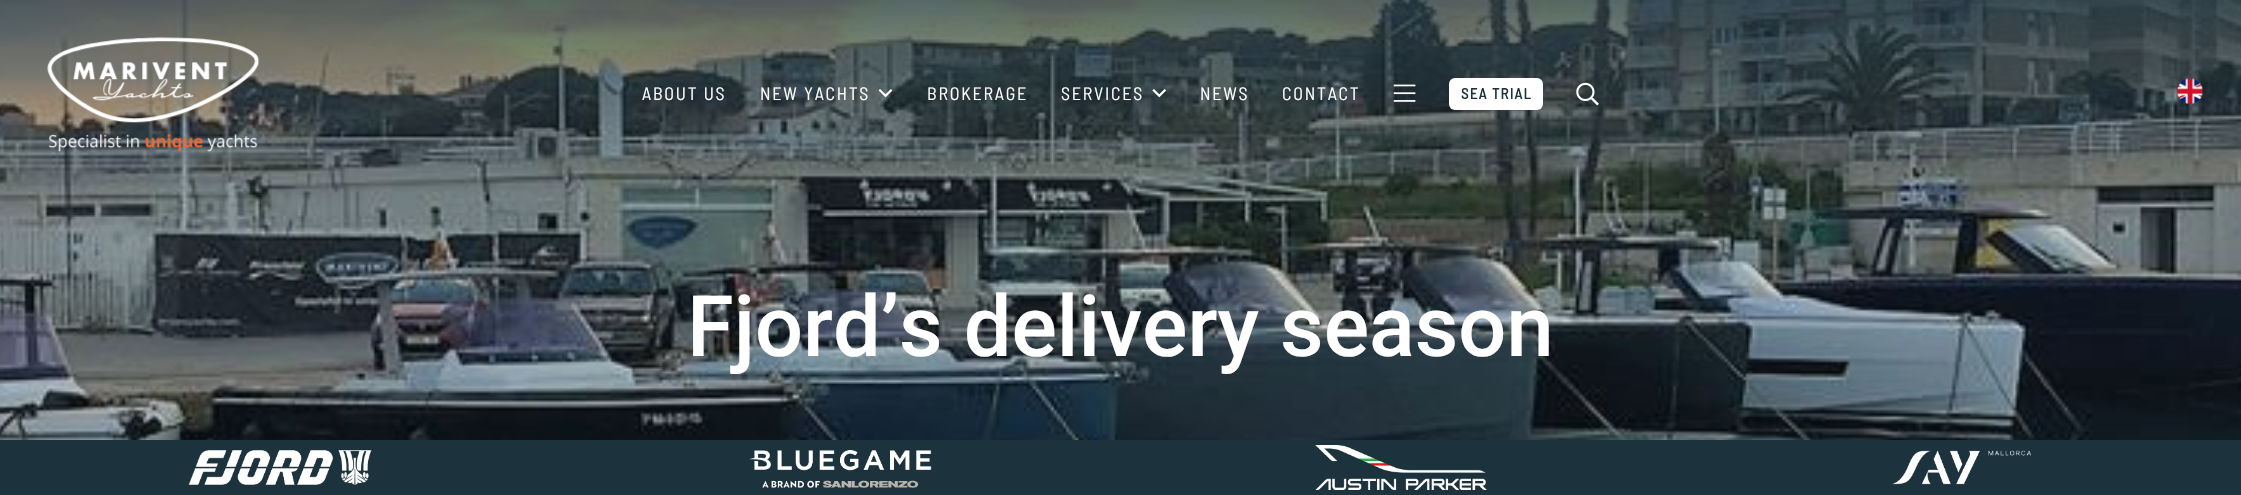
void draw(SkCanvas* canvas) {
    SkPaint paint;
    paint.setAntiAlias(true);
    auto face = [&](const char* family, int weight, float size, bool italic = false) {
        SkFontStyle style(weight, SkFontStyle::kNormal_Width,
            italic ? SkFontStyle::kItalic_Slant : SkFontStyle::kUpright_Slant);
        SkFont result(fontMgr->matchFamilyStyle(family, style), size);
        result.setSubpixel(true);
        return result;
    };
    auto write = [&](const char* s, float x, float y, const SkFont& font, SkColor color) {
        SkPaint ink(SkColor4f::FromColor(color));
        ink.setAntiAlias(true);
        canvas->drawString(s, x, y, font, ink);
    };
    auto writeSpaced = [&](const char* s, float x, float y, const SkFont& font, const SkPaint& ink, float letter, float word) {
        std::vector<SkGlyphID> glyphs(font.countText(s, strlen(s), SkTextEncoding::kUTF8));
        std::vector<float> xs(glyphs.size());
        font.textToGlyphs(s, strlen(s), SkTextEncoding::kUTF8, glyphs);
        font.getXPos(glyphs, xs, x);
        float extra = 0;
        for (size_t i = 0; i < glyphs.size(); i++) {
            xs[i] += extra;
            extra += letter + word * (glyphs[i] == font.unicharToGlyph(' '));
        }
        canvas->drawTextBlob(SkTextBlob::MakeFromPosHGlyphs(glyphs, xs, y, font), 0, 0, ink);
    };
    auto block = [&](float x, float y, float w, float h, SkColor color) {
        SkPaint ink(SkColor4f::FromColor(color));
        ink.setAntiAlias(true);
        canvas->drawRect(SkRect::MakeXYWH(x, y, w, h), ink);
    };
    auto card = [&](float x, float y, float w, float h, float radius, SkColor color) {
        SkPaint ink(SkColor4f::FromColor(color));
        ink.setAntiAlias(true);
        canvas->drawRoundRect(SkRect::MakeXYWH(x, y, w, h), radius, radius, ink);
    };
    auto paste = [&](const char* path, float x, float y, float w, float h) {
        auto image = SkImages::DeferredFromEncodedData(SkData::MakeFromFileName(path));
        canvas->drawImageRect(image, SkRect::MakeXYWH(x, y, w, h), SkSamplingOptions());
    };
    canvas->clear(SK_ColorWHITE);
    paste("pic7.png", 0, 0, 2241, 440);
    paste("pic1.png", 47, 37, 213, 115);
    auto kFont1 = face("Barlow Semi Condensed", 400, 18);
    paint.setColor(SK_ColorWHITE);
    writeSpaced("ABOUT US", 642, 100, kFont1, paint, 1.75f, 0);
    writeSpaced("NEW YACHTS", 760, 100, kFont1, paint, 1.75f, 0);
    paste("pic2.png", 878, 89, 15, 9);
    writeSpaced("BROKERAGE", 927, 100, kFont1, paint, 1.75f, 0);
    writeSpaced("SERVICES", 1061, 100, kFont1, paint, 1.75f, 0);
    paste("pic3.png", 1152, 89, 14, 9);
    writeSpaced("NEWS", 1200, 100, kFont1, paint, 1.75f, 0);
    writeSpaced("CONTACT", 1282, 100, kFont1, paint, 1.75f, 0);
    paste("pic4.png", 1393, 84, 23, 18);
    card(1449, 78, 94, 32, 6, SK_ColorWHITE);
    auto kFont2 = face("Barlow Semi Condensed", 700, 15);
    paint.setColor(SkColorSetRGB(28, 51, 61));
    writeSpaced("SEA TRIAL", 1461, 99, kFont2, paint, 1.25f, 0);
    paste("pic5.png", 1576, 82, 23, 24);
    paste("pic6.png", 2177, 78, 26, 26);
    auto kFont3 = face("Roboto", 500, 84.75f);
    write("Fjord’s delivery season", 687, 356, kFont3, SK_ColorWHITE);
    block(0, 440, 2241, 55, SkColorSetRGB(28, 51, 61));
    paste("pic8.png", 188, 450, 184, 35);
    paste("pic9.png", 749, 450, 183, 38);
    paste("pic10.png", 1315, 445, 172, 45);
    paste("pic11.png", 1892, 450, 139, 35);
}
